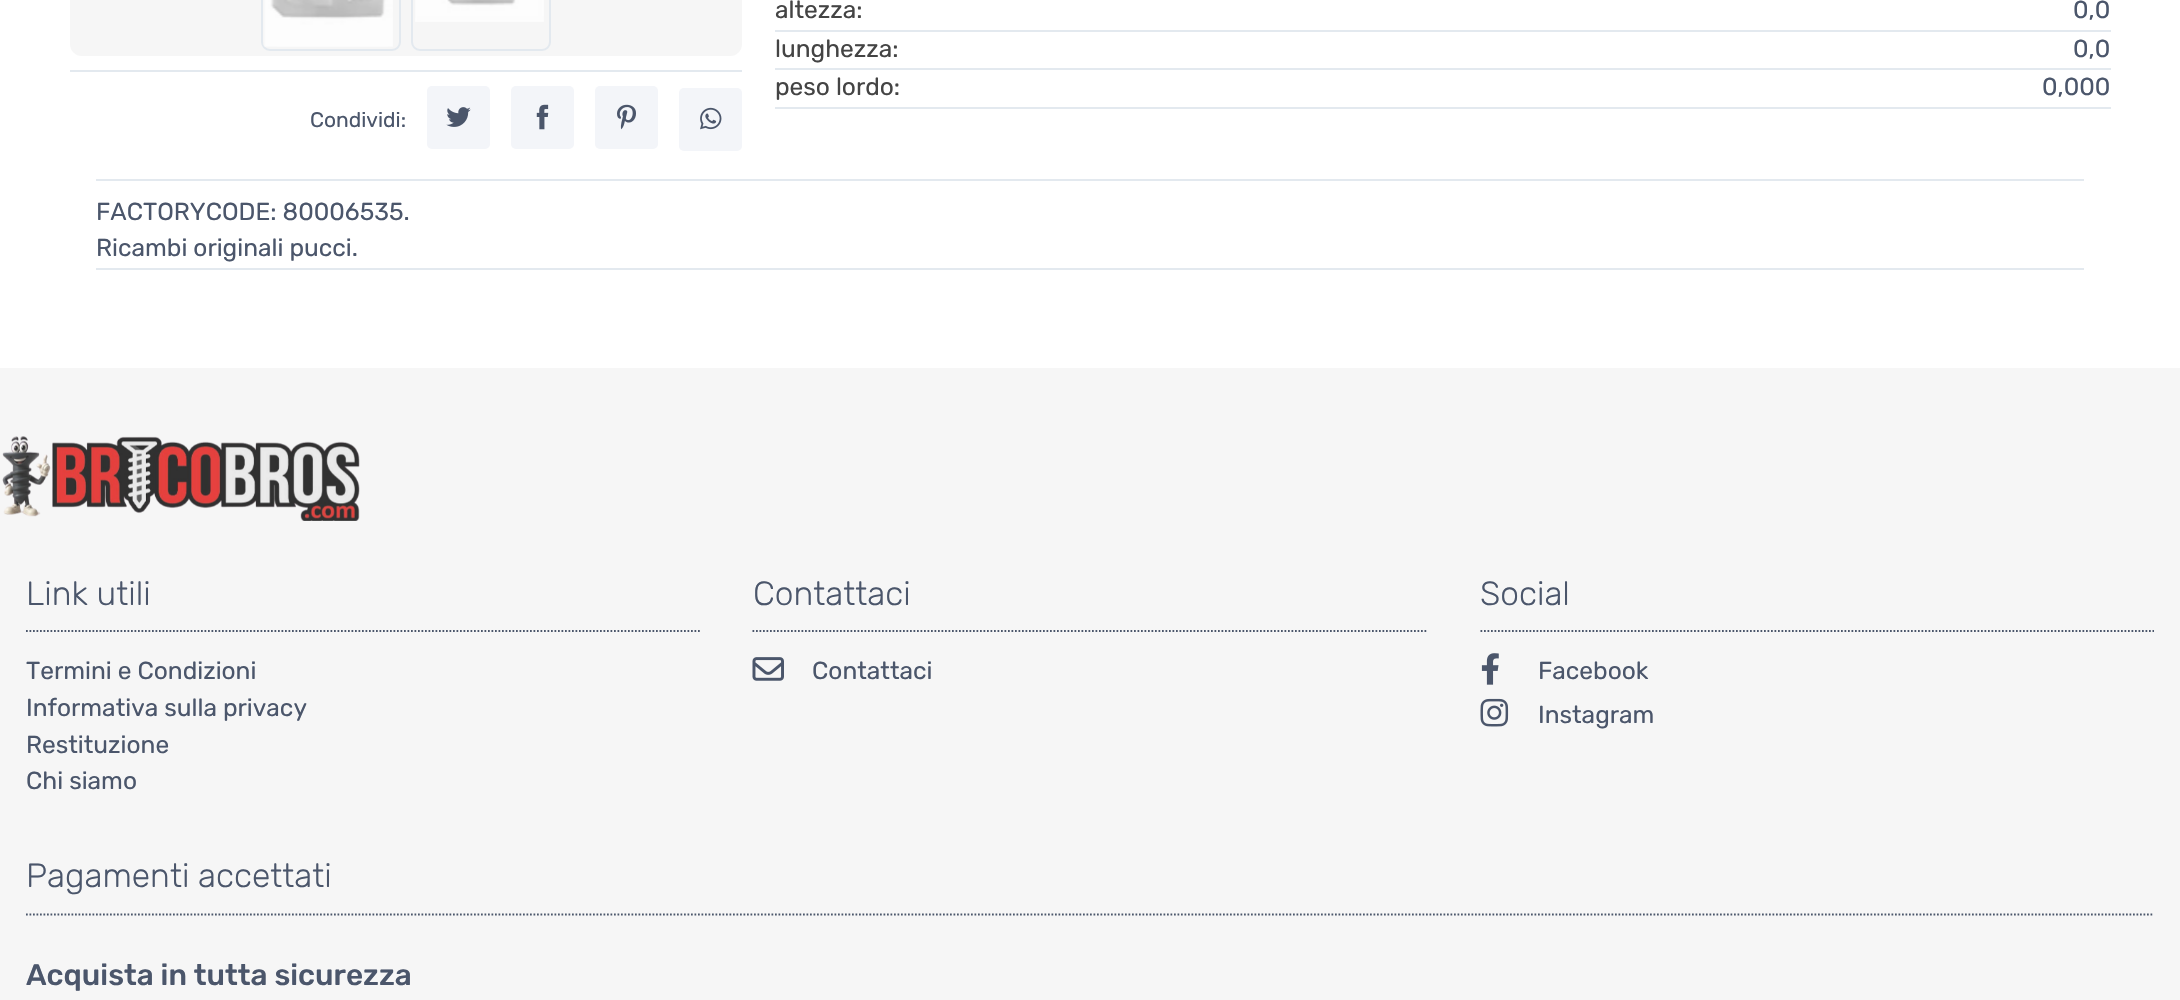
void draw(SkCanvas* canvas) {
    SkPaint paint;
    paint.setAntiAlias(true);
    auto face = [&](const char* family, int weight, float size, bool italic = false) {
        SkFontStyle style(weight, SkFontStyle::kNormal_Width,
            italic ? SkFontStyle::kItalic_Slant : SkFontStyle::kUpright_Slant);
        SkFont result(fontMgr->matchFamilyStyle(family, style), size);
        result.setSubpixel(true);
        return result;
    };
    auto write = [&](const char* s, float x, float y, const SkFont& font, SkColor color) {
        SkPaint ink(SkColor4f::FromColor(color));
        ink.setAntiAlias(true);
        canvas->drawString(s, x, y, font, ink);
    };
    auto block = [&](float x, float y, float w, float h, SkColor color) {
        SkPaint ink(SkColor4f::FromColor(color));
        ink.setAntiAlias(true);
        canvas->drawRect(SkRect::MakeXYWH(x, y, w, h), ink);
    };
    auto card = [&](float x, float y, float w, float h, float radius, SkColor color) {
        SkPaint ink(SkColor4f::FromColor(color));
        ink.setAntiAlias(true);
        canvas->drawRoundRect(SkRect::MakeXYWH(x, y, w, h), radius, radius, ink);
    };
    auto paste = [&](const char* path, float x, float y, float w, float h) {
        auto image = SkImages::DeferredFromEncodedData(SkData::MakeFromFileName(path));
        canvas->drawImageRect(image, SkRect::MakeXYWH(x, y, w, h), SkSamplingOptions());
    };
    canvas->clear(SK_ColorWHITE);
    block(775, 30, 1336, 2, SkColorSetRGB(227, 233, 239));
    auto kFont1 = face("Rubik", 400, 24.5f);
    write("altezza:", 775, 18, kFont1, SkColorSetRGB(68, 68, 68));
    write("0,0", 2073, 18, kFont1, SkColorSetRGB(75, 86, 107));
    block(775, 68, 1336, 2, SkColorSetRGB(227, 233, 239));
    write("lunghezza:", 775, 57, kFont1, SkColorSetRGB(68, 68, 68));
    write("0,0", 2073, 57, kFont1, SkColorSetRGB(75, 86, 107));
    block(775, 107, 1336, 2, SkColorSetRGB(227, 233, 239));
    write("peso lordo:", 775, 95, kFont1, SkColorSetRGB(68, 68, 68));
    write("0,000", 2042, 95, kFont1, SkColorSetRGB(75, 86, 107));
    card(70, -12, 672, 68, 12, SkColorSetRGB(246, 246, 246));
    paint.setStyle(SkPaint::kStroke_Style);
    paint.setStrokeWidth(2);
    paint.setColor(SkColorSetRGB(227, 233, 239));
    canvas->drawRoundRect(SkRect::MakeXYWH(262, -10, 138, 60), 8, 8, paint);
    paste("pic1.png", 263, 0, 130, 47);
    canvas->drawRoundRect(SkRect::MakeXYWH(412, -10, 138, 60), 8, 8, paint);
    paste("pic2.png", 415, 0, 129, 22);
    block(70, 70, 672, 2, SkColorSetRGB(227, 233, 239));
    auto kFont2 = face("Rubik", 400, 21);
    write("Condividi:", 310, 127, kFont2, SkColorSetRGB(75, 86, 107));
    card(427, 86, 63, 63, 5, SkColorSetRGB(243, 245, 249));
    paste("pic3.png", 446, 107, 25, 20);
    card(511, 86, 63, 63, 5, SkColorSetRGB(243, 245, 249));
    paste("pic4.png", 536, 104, 13, 26);
    card(595, 86, 63, 63, 5, SkColorSetRGB(243, 245, 249));
    paste("pic5.png", 617, 104, 19, 26);
    card(679, 88, 63, 63, 5, SkColorSetRGB(243, 245, 249));
    paste("pic6.png", 700, 107, 22, 23);
    block(96, 179, 1988, 2, SkColorSetRGB(227, 233, 239));
    write("FACTORYCODE: 80006535.", 96, 220, kFont1, SkColorSetRGB(75, 86, 107));
    write("Ricambi originali pucci.", 96, 256, kFont1, SkColorSetRGB(75, 86, 107));
    block(96, 268, 1988, 2, SkColorSetRGB(227, 233, 239));
    block(0, 368, 2180, 632, SkColorSetRGB(246, 246, 246));
    paste("pic7.png", 2, 436, 358, 85);
    paint.setStrokeWidth(1.8f);
    paint.setColor(SkColorSetRGB(75, 86, 107));
    paint.setPathEffect(SkDashPathEffect::Make({{1.75f, 1.75f}}, 0));
    canvas->drawPath(SkPathBuilder().moveTo(26, 631).lineTo(700, 631).detach(), paint);
    paint.setPathEffect(nullptr);
    auto kFont3 = face("Rubik", 300, 33.5f);
    write("Link utili", 26, 605, kFont3, SkColorSetRGB(75, 86, 107));
    write("Termini e Condizioni", 26, 679, kFont1, SkColorSetRGB(75, 86, 107));
    write("Informativa sulla privacy", 26, 716, kFont1, SkColorSetRGB(75, 86, 107));
    write("Restituzione", 26, 753, kFont1, SkColorSetRGB(75, 86, 107));
    write("Chi siamo", 26, 789, kFont1, SkColorSetRGB(75, 86, 107));
    paint.setPathEffect(SkDashPathEffect::Make({{1.75f, 1.75f}}, 0));
    canvas->drawPath(SkPathBuilder().moveTo(752.5f, 631).lineTo(1428, 631).detach(), paint);
    paint.setPathEffect(nullptr);
    write("Contattaci", 753, 605, kFont3, SkColorSetRGB(75, 86, 107));
    paste("pic8.png", 752, 657, 32, 24);
    write("Contattaci", 812, 679, kFont1, SkColorSetRGB(75, 86, 107));
    paint.setPathEffect(SkDashPathEffect::Make({{1.75f, 1.75f}}, 0));
    canvas->drawPath(SkPathBuilder().moveTo(1480.5f, 631).lineTo(2154, 631).detach(), paint);
    paint.setPathEffect(nullptr);
    write("Social", 1480, 605, kFont3, SkColorSetRGB(75, 86, 107));
    paste("pic9.png", 1481, 653, 18, 32);
    write("Facebook", 1538, 679, kFont1, SkColorSetRGB(75, 86, 107));
    paste("pic10.png", 1480, 698, 29, 29);
    write("Instagram", 1538, 723, kFont1, SkColorSetRGB(75, 86, 107));
    paint.setPathEffect(SkDashPathEffect::Make({{1.75f, 1.75f}}, 0));
    canvas->drawPath(SkPathBuilder().moveTo(26, 914.5f).lineTo(2154, 914.5f).detach(), paint);
    paint.setPathEffect(nullptr);
    write("Pagamenti accettati", 26, 887, kFont3, SkColorSetRGB(75, 86, 107));
    auto kFont4 = face("Rubik", 500, 29.75f);
    write("Acquista in tutta sicurezza", 26, 985, kFont4, SkColorSetRGB(75, 86, 107));
}
